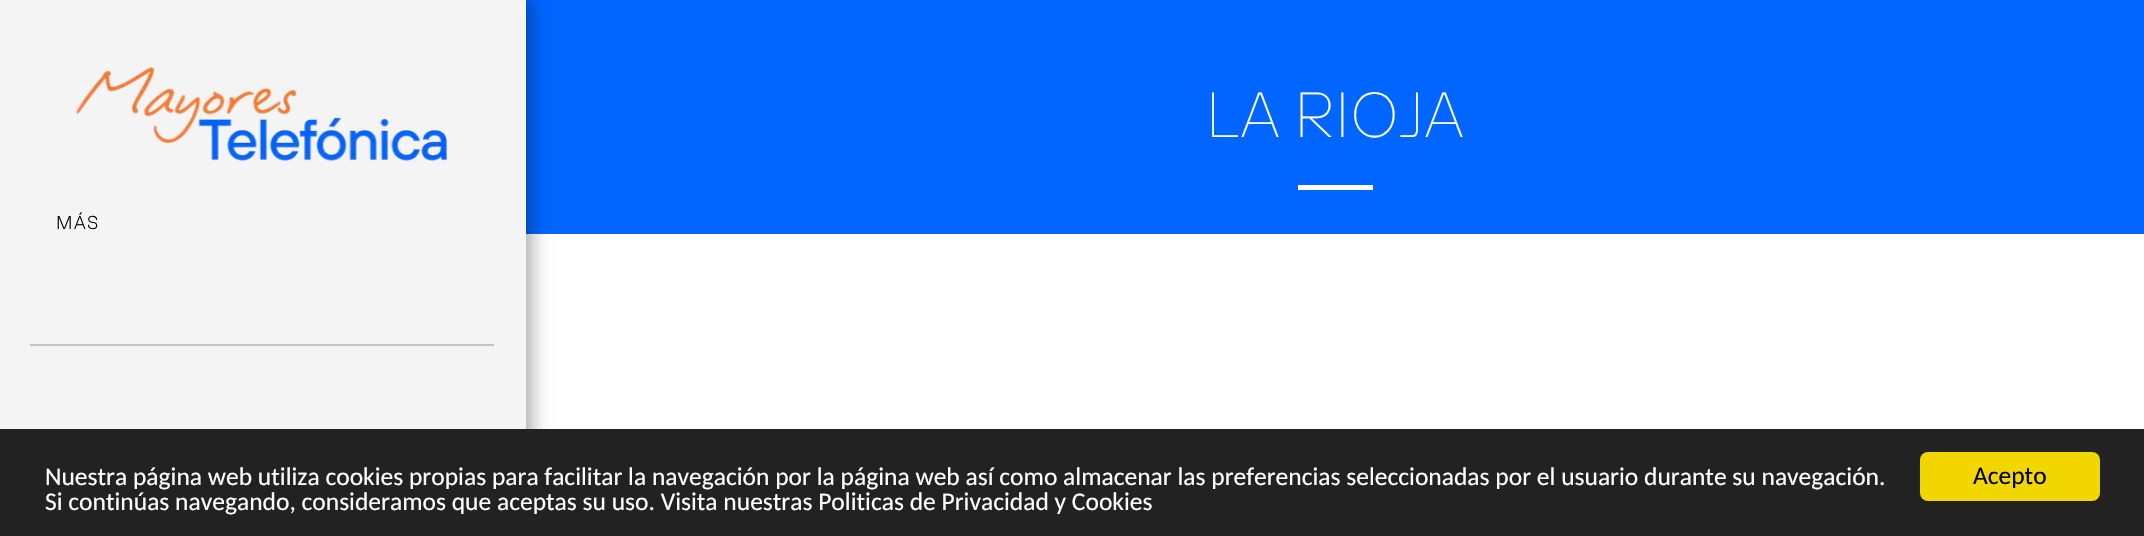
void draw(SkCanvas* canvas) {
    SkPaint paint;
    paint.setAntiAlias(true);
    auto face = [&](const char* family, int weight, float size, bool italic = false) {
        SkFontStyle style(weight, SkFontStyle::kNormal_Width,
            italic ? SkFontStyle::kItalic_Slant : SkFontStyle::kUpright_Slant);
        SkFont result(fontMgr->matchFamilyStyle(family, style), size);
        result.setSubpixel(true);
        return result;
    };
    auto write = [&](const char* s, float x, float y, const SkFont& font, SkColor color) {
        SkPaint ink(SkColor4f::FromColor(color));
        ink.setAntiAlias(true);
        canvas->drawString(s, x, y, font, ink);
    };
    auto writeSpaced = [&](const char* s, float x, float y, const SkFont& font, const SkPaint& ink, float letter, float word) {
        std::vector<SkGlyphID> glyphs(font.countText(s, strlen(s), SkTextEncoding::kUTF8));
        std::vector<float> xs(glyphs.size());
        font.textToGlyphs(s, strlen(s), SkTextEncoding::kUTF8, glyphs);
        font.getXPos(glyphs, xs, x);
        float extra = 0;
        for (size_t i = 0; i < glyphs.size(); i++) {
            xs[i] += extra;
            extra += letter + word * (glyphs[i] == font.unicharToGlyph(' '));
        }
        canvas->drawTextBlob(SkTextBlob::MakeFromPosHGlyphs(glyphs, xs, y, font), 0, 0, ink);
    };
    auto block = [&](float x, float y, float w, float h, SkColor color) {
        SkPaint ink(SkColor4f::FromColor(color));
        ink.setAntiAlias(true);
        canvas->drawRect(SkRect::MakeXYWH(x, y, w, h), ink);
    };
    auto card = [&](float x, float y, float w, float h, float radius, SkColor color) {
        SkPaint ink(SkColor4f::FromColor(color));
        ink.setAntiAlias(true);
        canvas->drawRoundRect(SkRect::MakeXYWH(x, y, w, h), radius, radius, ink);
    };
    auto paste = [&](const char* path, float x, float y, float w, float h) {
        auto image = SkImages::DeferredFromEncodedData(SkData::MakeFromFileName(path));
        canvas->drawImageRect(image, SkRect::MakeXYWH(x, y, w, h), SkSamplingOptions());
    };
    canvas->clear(SK_ColorWHITE);
    block(526, 0, 1618, 234, SkColorSetRGB(0, 102, 255));
    auto kFont1 = face("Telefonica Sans", 100, 63.5f);
    paint.setColor(SK_ColorWHITE);
    writeSpaced("LA RIOJA", 1206, 137, kFont1, paint, 0.75f, 0);
    block(1298, 185, 75, 5, SK_ColorWHITE);
    paint.setColor(SkColorSetARGB(89, 0, 0, 0));
    paint.setMaskFilter(SkMaskFilter::MakeBlur(kNormal_SkBlurStyle, 9));
    canvas->drawRect(SkRect::MakeXYWH(0, -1, 531, 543), paint);
    paint.setMaskFilter(nullptr);
    block(0, 0, 526, 429, SkColorSetRGB(245, 244, 244));
    paste("pic1.png", 76, 67, 371, 94);
    auto kFont2 = face("Telefonica Sans", 700, 18);
    paint.setColor(SK_ColorBLACK);
    writeSpaced("MÁS", 56, 229, kFont2, paint, 2, 0);
    block(30, 344, 464, 2, SkColorSetRGB(196, 195, 195));
    block(0, 429, 2144, 107, SkColorSetRGB(34, 34, 34));
    auto kFont3 = face("Carlito", 400, 25.5f);
    write("Nuestra página web utiliza cookies propias para facilitar la navegación por la página web así como almacenar las preferencias seleccionadas por el usuario durante su navegación.", 45, 485, kFont3, SK_ColorWHITE);
    write("Si continúas navegando, consideramos que aceptas su uso. Visita nuestras Politicas de Privacidad y Cookies", 45, 510, kFont3, SK_ColorWHITE);
    card(1920, 452, 180, 49, 8, SkColorSetRGB(241, 214, 0));
    write("Acepto", 1973, 484, kFont3, SK_ColorBLACK);
}
